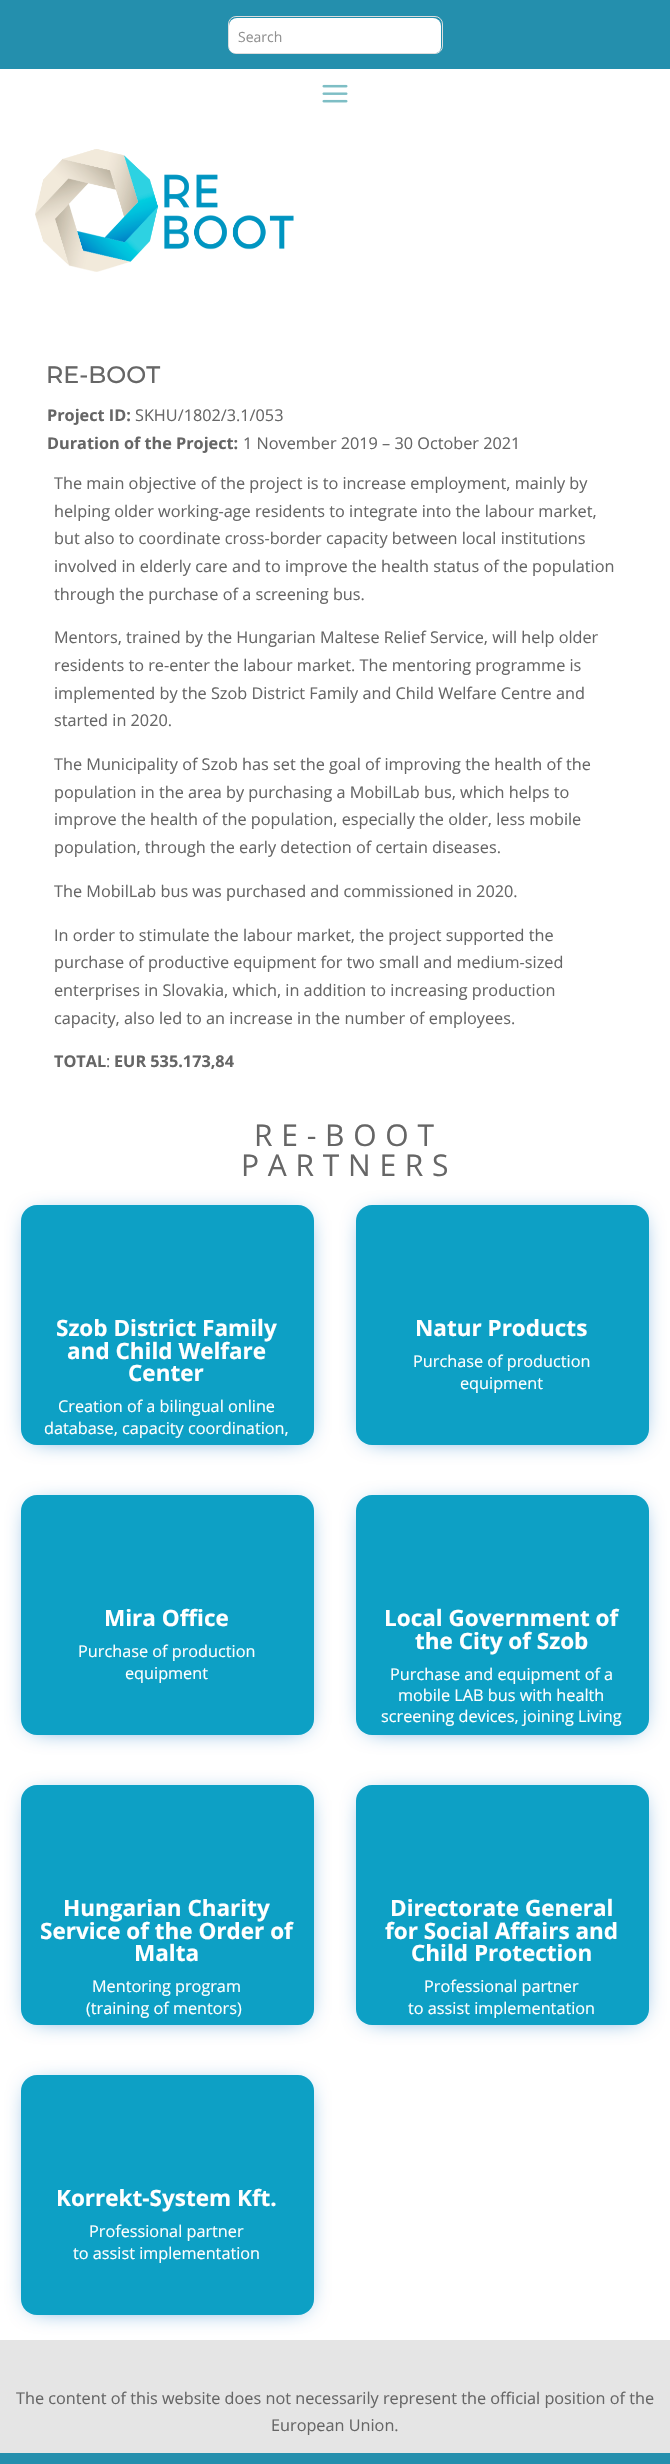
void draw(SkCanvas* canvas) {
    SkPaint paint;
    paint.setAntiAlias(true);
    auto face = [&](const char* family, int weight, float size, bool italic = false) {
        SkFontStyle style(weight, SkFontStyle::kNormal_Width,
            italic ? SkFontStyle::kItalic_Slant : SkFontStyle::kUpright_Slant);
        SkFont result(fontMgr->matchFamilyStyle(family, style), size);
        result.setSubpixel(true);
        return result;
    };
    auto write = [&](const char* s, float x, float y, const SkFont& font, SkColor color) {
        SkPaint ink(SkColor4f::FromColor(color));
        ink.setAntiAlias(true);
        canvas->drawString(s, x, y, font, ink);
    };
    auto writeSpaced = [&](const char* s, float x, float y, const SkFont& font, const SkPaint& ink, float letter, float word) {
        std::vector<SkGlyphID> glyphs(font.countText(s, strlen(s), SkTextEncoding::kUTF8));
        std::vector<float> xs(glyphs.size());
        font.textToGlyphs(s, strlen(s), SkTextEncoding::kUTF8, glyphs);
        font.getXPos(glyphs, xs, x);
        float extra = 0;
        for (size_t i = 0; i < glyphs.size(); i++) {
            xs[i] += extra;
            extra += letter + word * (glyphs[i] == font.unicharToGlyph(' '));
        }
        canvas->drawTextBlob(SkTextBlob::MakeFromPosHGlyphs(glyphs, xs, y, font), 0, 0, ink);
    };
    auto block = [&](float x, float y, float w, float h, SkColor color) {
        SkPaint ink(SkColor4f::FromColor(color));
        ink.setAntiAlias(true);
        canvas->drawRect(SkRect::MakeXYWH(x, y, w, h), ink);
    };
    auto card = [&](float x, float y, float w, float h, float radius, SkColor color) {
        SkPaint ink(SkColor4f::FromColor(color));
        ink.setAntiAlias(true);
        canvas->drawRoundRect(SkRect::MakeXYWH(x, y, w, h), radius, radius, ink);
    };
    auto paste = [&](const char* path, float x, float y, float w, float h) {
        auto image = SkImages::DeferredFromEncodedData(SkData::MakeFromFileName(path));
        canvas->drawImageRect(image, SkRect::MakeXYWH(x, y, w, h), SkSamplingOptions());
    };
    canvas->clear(SK_ColorWHITE);
    block(0, 0, 670, 69, SkColorSetRGB(36, 143, 173));
    paint.setStyle(SkPaint::kStroke_Style);
    paint.setStrokeWidth(1);
    paint.setColor(SkColorSetRGB(221, 221, 221));
    canvas->drawRoundRect(SkRect::MakeXYWH(228.5f, 16.5f, 214, 37), 7.5f, 7.5f, paint);
    canvas->save();
    canvas->clipPath(SkPathBuilder().moveTo(235, 18).lineTo(435, 18).cubicTo(438.5f, 18, 441, 20.5f, 441, 24).lineTo(441, 47).cubicTo(441, 50.5f, 438.5f, 53, 435, 53).lineTo(235, 53).cubicTo(231.5f, 53, 229, 50.5f, 229, 47).lineTo(229, 24).cubicTo(229, 20.5f, 231.5f, 18, 235, 18).close().detach(), true);
    card(229, 18, 212, 38, 8, SK_ColorWHITE);
    canvas->restore();
    auto kFont1 = face("Open Sans", 400, 14);
    write("Search", 238, 42, kFont1, SkColorSetRGB(145, 145, 145));
    paste("pic1.png", 322, 84, 26, 19);
    paste("pic2.png", 35, 149, 259, 123);
    auto kFont2 = face("Montserrat", 500, 23.75f);
    write("RE-BOOT", 46, 383, kFont2, SkColorSetRGB(102, 102, 102));
    auto kFont3 = face("Open Sans", 700, 16.25f);
    write("Project ID:", 47, 421, kFont3, SkColorSetRGB(102, 102, 102));
    auto kFont4 = face("Open Sans", 400, 16.25f);
    write("SKHU/1802/3.1/053", 135, 421, kFont4, SkColorSetRGB(102, 102, 102));
    write("Duration of the Project:", 47, 449, kFont3, SkColorSetRGB(102, 102, 102));
    write("1 November 2019 – 30 October 2021", 243, 449, kFont4, SkColorSetRGB(102, 102, 102));
    write("The main objective of the project is to increase employment, mainly by", 54, 489, kFont4, SkColorSetRGB(102, 102, 102));
    write("helping older working-age residents to integrate into the labour market,", 54, 517, kFont4, SkColorSetRGB(102, 102, 102));
    write("but also to coordinate cross-border capacity between local institutions", 54, 544, kFont4, SkColorSetRGB(102, 102, 102));
    write("involved in elderly care and to improve the health status of the population", 54, 572, kFont4, SkColorSetRGB(102, 102, 102));
    write("through the purchase of a screening bus.", 54, 600, kFont4, SkColorSetRGB(102, 102, 102));
    write("Mentors, trained by the Hungarian Maltese Relief Service, will help older", 54, 643, kFont4, SkColorSetRGB(102, 102, 102));
    write("residents to re-enter the labour market. The mentoring programme is", 54, 671, kFont4, SkColorSetRGB(102, 102, 102));
    write("implemented by the Szob District Family and Child Welfare Centre and", 54, 699, kFont4, SkColorSetRGB(102, 102, 102));
    write("started in 2020.", 54, 726, kFont4, SkColorSetRGB(102, 102, 102));
    write("The Municipality of Szob has set the goal of improving the health of the", 54, 770, kFont4, SkColorSetRGB(102, 102, 102));
    write("population in the area by purchasing a MobilLab bus, which helps to", 54, 798, kFont4, SkColorSetRGB(102, 102, 102));
    write("improve the health of the population, especially the older, less mobile", 54, 825, kFont4, SkColorSetRGB(102, 102, 102));
    write("population, through the early detection of certain diseases.", 54, 853, kFont4, SkColorSetRGB(102, 102, 102));
    write("The MobilLab bus was purchased and commissioned in 2020.", 54, 897, kFont4, SkColorSetRGB(102, 102, 102));
    write("In order to stimulate the labour market, the project supported the", 54, 941, kFont4, SkColorSetRGB(102, 102, 102));
    write("purchase of productive equipment for two small and medium-sized", 54, 968, kFont4, SkColorSetRGB(102, 102, 102));
    write("enterprises in Slovakia, which, in addition to increasing production", 54, 996, kFont4, SkColorSetRGB(102, 102, 102));
    write("capacity, also led to an increase in the number of employees.", 54, 1024, kFont4, SkColorSetRGB(102, 102, 102));
    write("TOTAL", 54, 1067, kFont3, SkColorSetRGB(102, 102, 102));
    write(":", 106, 1067, kFont4, SkColorSetRGB(102, 102, 102));
    write("EUR 535.173,84", 114, 1067, kFont3, SkColorSetRGB(102, 102, 102));
    auto kFont5 = face("Open Sans", 400, 30);
    paint.setStyle(SkPaint::kFill_Style);
    paint.setColor(SkColorSetRGB(102, 102, 102));
    writeSpaced("RE-BOOT", 254, 1146, kFont5, paint, 8.75f, 0);
    writeSpaced("PARTNERS", 241, 1176, kFont5, paint, 8.75f, 0);
    paint.setColor(SkColorSetRGB(12, 113, 195));
    paint.setMaskFilter(SkMaskFilter::MakeBlur(kNormal_SkBlurStyle, 12));
    canvas->drawRoundRect(SkRect::MakeXYWH(33, 1219, 270, 217), 5, 5, paint);
    paint.setMaskFilter(nullptr);
    card(21, 1205, 293, 240, 16, SkColorSetRGB(13, 160, 197));
    auto kFont6 = face("Open Sans", 700, 22.5f);
    write("Szob District Family", 56, 1336, kFont6, SK_ColorWHITE);
    write("and Child Welfare", 67, 1359, kFont6, SK_ColorWHITE);
    write("Center", 128, 1381, kFont6, SK_ColorWHITE);
    write("Creation of a bilingual online", 58, 1412, kFont4, SK_ColorWHITE);
    write("database, capacity coordination,", 44, 1434, kFont4, SK_ColorWHITE);
    paint.setMaskFilter(SkMaskFilter::MakeBlur(kNormal_SkBlurStyle, 12));
    canvas->drawRoundRect(SkRect::MakeXYWH(368, 1219, 270, 217), 5, 5, paint);
    paint.setMaskFilter(nullptr);
    card(356, 1205, 293, 240, 16, SkColorSetRGB(13, 160, 197));
    write("Natur Products", 415, 1336, kFont6, SK_ColorWHITE);
    write("Purchase of production", 413, 1367, kFont4, SK_ColorWHITE);
    write("equipment", 460, 1389, kFont4, SK_ColorWHITE);
    paint.setMaskFilter(SkMaskFilter::MakeBlur(kNormal_SkBlurStyle, 12));
    canvas->drawRoundRect(SkRect::MakeXYWH(33, 1509, 270, 217), 5, 5, paint);
    paint.setMaskFilter(nullptr);
    card(21, 1495, 293, 240, 16, SkColorSetRGB(13, 160, 197));
    write("Mira Office", 104, 1626, kFont6, SK_ColorWHITE);
    write("Purchase of production", 78, 1657, kFont4, SK_ColorWHITE);
    write("equipment", 125, 1679, kFont4, SK_ColorWHITE);
    paint.setMaskFilter(SkMaskFilter::MakeBlur(kNormal_SkBlurStyle, 12));
    canvas->drawRoundRect(SkRect::MakeXYWH(368, 1509, 270, 217), 5, 5, paint);
    paint.setMaskFilter(nullptr);
    card(356, 1495, 293, 240, 16, SkColorSetRGB(13, 160, 197));
    write("Local Government of", 384, 1626, kFont6, SK_ColorWHITE);
    write("the City of Szob", 415, 1649, kFont6, SK_ColorWHITE);
    write("Purchase and equipment of a", 390, 1680, kFont4, SK_ColorWHITE);
    write("mobile LAB bus with health", 398, 1701, kFont4, SK_ColorWHITE);
    write("screening devices, joining Living", 381, 1722, kFont4, SK_ColorWHITE);
    paint.setMaskFilter(SkMaskFilter::MakeBlur(kNormal_SkBlurStyle, 12));
    canvas->drawRoundRect(SkRect::MakeXYWH(33, 1799, 270, 217), 5, 5, paint);
    paint.setMaskFilter(nullptr);
    card(21, 1785, 293, 240, 16, SkColorSetRGB(13, 160, 197));
    write("Hungarian Charity", 63, 1916, kFont6, SK_ColorWHITE);
    write("Service of the Order of", 40, 1939, kFont6, SK_ColorWHITE);
    write("Malta", 134, 1961, kFont6, SK_ColorWHITE);
    write("Mentoring program", 92, 1992, kFont4, SK_ColorWHITE);
    write("(training of mentors)", 86, 2014, kFont4, SK_ColorWHITE);
    paint.setMaskFilter(SkMaskFilter::MakeBlur(kNormal_SkBlurStyle, 12));
    canvas->drawRoundRect(SkRect::MakeXYWH(368, 1799, 270, 217), 5, 5, paint);
    paint.setMaskFilter(nullptr);
    card(356, 1785, 293, 240, 16, SkColorSetRGB(13, 160, 197));
    write("Directorate General", 390, 1916, kFont6, SK_ColorWHITE);
    write("for Social Affairs and", 385, 1939, kFont6, SK_ColorWHITE);
    write("Child Protection", 411, 1961, kFont6, SK_ColorWHITE);
    write("Professional partner", 424, 1992, kFont4, SK_ColorWHITE);
    write("to assist implementation", 408, 2014, kFont4, SK_ColorWHITE);
    block(0, 2340, 670, 113, SkColorSetRGB(229, 229, 229));
    paint.setMaskFilter(SkMaskFilter::MakeBlur(kNormal_SkBlurStyle, 12));
    canvas->drawRoundRect(SkRect::MakeXYWH(33, 2089, 270, 217), 5, 5, paint);
    paint.setMaskFilter(nullptr);
    card(21, 2075, 293, 240, 16, SkColorSetRGB(13, 160, 197));
    write("Korrekt-System Kft.", 56, 2206, kFont6, SK_ColorWHITE);
    write("Professional partner", 89, 2237, kFont4, SK_ColorWHITE);
    write("to assist implementation", 73, 2259, kFont4, SK_ColorWHITE);
    write("The content of this website does not necessarily represent the official position of the", 16, 2404, kFont4, SkColorSetRGB(102, 102, 102));
    write("European Union.", 271, 2431, kFont4, SkColorSetRGB(102, 102, 102));
    block(0, 2453, 670, 11, SkColorSetRGB(36, 143, 173));
}
